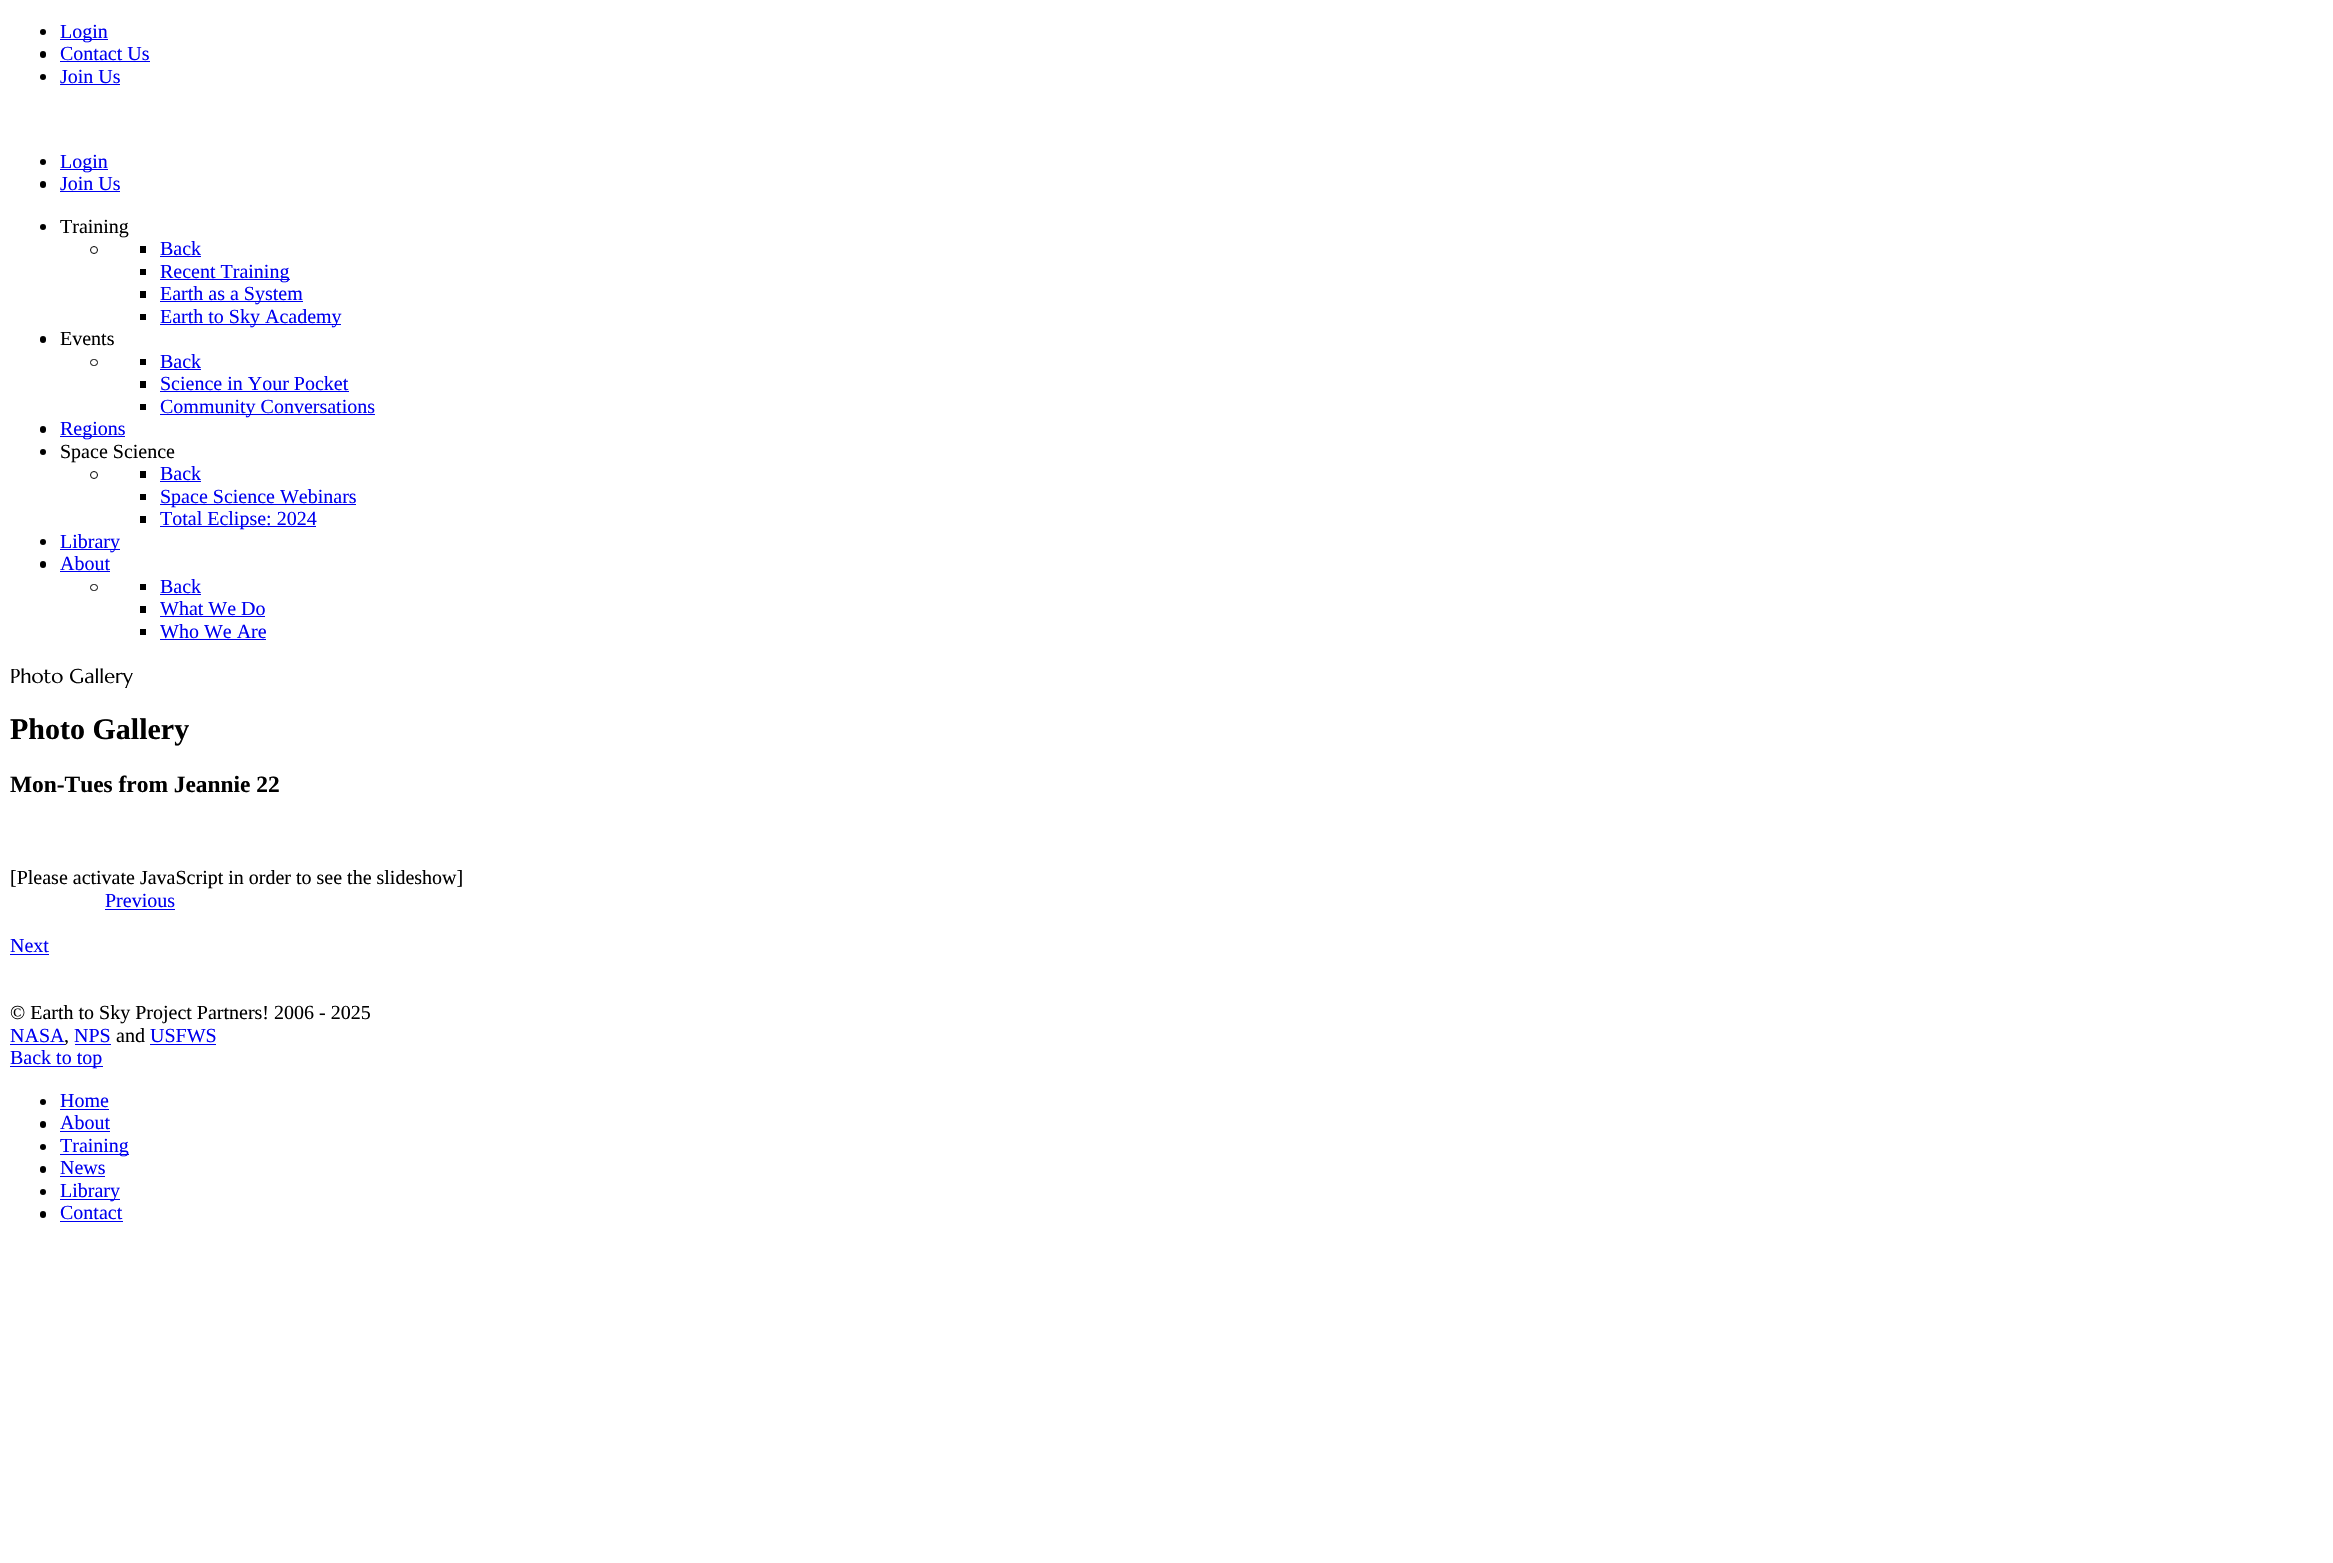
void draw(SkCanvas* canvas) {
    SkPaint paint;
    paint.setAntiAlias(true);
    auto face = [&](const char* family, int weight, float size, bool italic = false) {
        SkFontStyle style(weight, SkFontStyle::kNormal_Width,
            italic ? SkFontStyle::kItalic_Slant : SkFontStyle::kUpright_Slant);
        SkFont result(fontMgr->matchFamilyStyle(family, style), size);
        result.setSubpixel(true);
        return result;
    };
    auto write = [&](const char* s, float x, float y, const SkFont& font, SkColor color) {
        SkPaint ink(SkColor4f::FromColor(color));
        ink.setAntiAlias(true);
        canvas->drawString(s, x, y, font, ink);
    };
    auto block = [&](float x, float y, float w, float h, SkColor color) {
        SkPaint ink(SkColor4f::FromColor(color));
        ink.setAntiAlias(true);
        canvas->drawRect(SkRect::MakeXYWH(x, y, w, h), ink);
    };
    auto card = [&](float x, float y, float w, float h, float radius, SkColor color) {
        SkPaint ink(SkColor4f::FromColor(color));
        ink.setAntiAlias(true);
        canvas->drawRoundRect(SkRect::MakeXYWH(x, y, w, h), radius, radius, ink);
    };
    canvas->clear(SK_ColorWHITE);
    paint.setColor(SK_ColorBLACK);
    canvas->drawCircle(43, 32, 3, paint);
    block(60, 39, 48, 1, SkColorSetRGB(0, 0, 238));
    auto kFont1 = face("Liberation Serif", 400, 20);
    write("Login", 60, 38, kFont1, SkColorSetRGB(0, 0, 238));
    card(40, 51, 6, 7, 3, SK_ColorBLACK);
    write("Contact Us", 60, 60, kFont1, SkColorSetRGB(0, 0, 238));
    block(60, 61, 90, 1, SkColorSetRGB(0, 0, 238));
    canvas->drawCircle(43, 77, 3, paint);
    write("Join Us", 60, 83, kFont1, SkColorSetRGB(0, 0, 238));
    block(60, 84, 60, 1, SkColorSetRGB(0, 0, 238));
    canvas->drawCircle(43, 162, 3, paint);
    block(60, 169, 48, 1, SkColorSetRGB(0, 0, 238));
    write("Login", 60, 168, kFont1, SkColorSetRGB(0, 0, 238));
    card(40, 181, 6, 7, 3, SK_ColorBLACK);
    write("Join Us", 60, 190, kFont1, SkColorSetRGB(0, 0, 238));
    block(60, 191, 60, 1, SkColorSetRGB(0, 0, 238));
    canvas->drawCircle(43, 227, 3, paint);
    write("Training", 60, 233, kFont1, SK_ColorBLACK);
    paint.setStyle(SkPaint::kStroke_Style);
    paint.setStrokeWidth(1);
    canvas->drawCircle(94, 250, 3.5f, paint);
    block(140, 246, 6, 7, SK_ColorBLACK);
    write("Back", 160, 255, kFont1, SkColorSetRGB(0, 0, 238));
    block(160, 256, 41, 1, SkColorSetRGB(0, 0, 238));
    block(140, 269, 6, 6, SK_ColorBLACK);
    block(160, 279, 130, 1, SkColorSetRGB(0, 0, 238));
    write("Recent Training", 160, 278, kFont1, SkColorSetRGB(0, 0, 238));
    block(140, 291, 6, 7, SK_ColorBLACK);
    block(160, 301, 143, 1, SkColorSetRGB(0, 0, 238));
    write("Earth as a System", 160, 300, kFont1, SkColorSetRGB(0, 0, 238));
    block(140, 314, 6, 6, SK_ColorBLACK);
    block(160, 324, 181, 1, SkColorSetRGB(0, 0, 238));
    write("Earth to Sky Academy", 160, 323, kFont1, SkColorSetRGB(0, 0, 238));
    card(40, 336, 6, 7, 3, SK_ColorBLACK);
    write("Events", 60, 345, kFont1, SK_ColorBLACK);
    canvas->drawRoundRect(SkRect::MakeXYWH(90.5f, 359.5f, 7, 6), 3, 3, paint);
    block(140, 359, 6, 6, SK_ColorBLACK);
    write("Back", 160, 368, kFont1, SkColorSetRGB(0, 0, 238));
    block(160, 369, 41, 1, SkColorSetRGB(0, 0, 238));
    block(140, 381, 6, 7, SK_ColorBLACK);
    write("Science in Your Pocket", 160, 390, kFont1, SkColorSetRGB(0, 0, 238));
    block(160, 391, 189, 1, SkColorSetRGB(0, 0, 238));
    block(140, 404, 6, 6, SK_ColorBLACK);
    block(160, 414, 215, 1, SkColorSetRGB(0, 0, 238));
    write("Community Conversations", 160, 413, kFont1, SkColorSetRGB(0, 0, 238));
    card(40, 426, 6, 7, 3, SK_ColorBLACK);
    block(60, 436, 65, 1, SkColorSetRGB(0, 0, 238));
    write("Regions", 60, 435, kFont1, SkColorSetRGB(0, 0, 238));
    paint.setStyle(SkPaint::kFill_Style);
    canvas->drawCircle(43, 452, 3, paint);
    write("Space Science", 60, 458, kFont1, SK_ColorBLACK);
    paint.setStyle(SkPaint::kStroke_Style);
    canvas->drawCircle(94, 475, 3.5f, paint);
    block(140, 471, 6, 7, SK_ColorBLACK);
    write("Back", 160, 480, kFont1, SkColorSetRGB(0, 0, 238));
    block(160, 481, 41, 1, SkColorSetRGB(0, 0, 238));
    block(140, 494, 6, 6, SK_ColorBLACK);
    block(160, 504, 196, 1, SkColorSetRGB(0, 0, 238));
    write("Space Science Webinars", 160, 503, kFont1, SkColorSetRGB(0, 0, 238));
    block(140, 516, 6, 7, SK_ColorBLACK);
    block(160, 526, 156, 1, SkColorSetRGB(0, 0, 238));
    write("Total Eclipse: 2024", 160, 525, kFont1, SkColorSetRGB(0, 0, 238));
    paint.setStyle(SkPaint::kFill_Style);
    canvas->drawCircle(43, 542, 3, paint);
    block(60, 549, 60, 1, SkColorSetRGB(0, 0, 238));
    write("Library", 60, 548, kFont1, SkColorSetRGB(0, 0, 238));
    card(40, 561, 6, 7, 3, SK_ColorBLACK);
    write("About", 60, 570, kFont1, SkColorSetRGB(0, 0, 238));
    block(60, 571, 50, 1, SkColorSetRGB(0, 0, 238));
    paint.setStyle(SkPaint::kStroke_Style);
    canvas->drawRoundRect(SkRect::MakeXYWH(90.5f, 584.5f, 7, 6), 3, 3, paint);
    block(140, 584, 6, 6, SK_ColorBLACK);
    write("Back", 160, 593, kFont1, SkColorSetRGB(0, 0, 238));
    block(160, 594, 41, 1, SkColorSetRGB(0, 0, 238));
    block(140, 606, 6, 7, SK_ColorBLACK);
    write("What We Do", 160, 615, kFont1, SkColorSetRGB(0, 0, 238));
    block(160, 616, 105, 1, SkColorSetRGB(0, 0, 238));
    block(140, 629, 6, 6, SK_ColorBLACK);
    write("Who We Are", 160, 638, kFont1, SkColorSetRGB(0, 0, 238));
    block(160, 639, 106, 1, SkColorSetRGB(0, 0, 238));
    auto kFont2 = face("Marcellus", 400, 20);
    write("Photo Gallery", 10, 683, kFont2, SK_ColorBLACK);
    auto kFont3 = face("Liberation Serif", 700, 30);
    write("Photo Gallery", 10, 739, kFont3, SK_ColorBLACK);
    auto kFont4 = face("Liberation Serif", 700, 23.4f);
    write("Mon-Tues from Jeannie 22", 10, 792, kFont4, SK_ColorBLACK);
    write("[Please activate JavaScript in order to see the slideshow]", 10, 884, kFont1, SK_ColorBLACK);
    write("Previous", 105, 907, kFont1, SkColorSetRGB(0, 0, 238));
    block(105, 909, 70, 1, SkColorSetRGB(0, 0, 238));
    write("Next", 10, 952, kFont1, SkColorSetRGB(0, 0, 238));
    block(10, 954, 39, 1, SkColorSetRGB(0, 0, 238));
    write("© Earth to Sky Project Partners! 2006 - 2025", 10, 1019, kFont1, SK_ColorBLACK);
    write("NASA", 10, 1042, kFont1, SkColorSetRGB(0, 0, 238));
    block(10, 1044, 55, 1, SkColorSetRGB(0, 0, 238));
    write(",", 64, 1042, kFont1, SK_ColorBLACK);
    write("NPS", 74, 1042, kFont1, SkColorSetRGB(0, 0, 238));
    block(75, 1044, 36, 1, SkColorSetRGB(0, 0, 238));
    write("and", 116, 1042, kFont1, SK_ColorBLACK);
    write("USFWS", 150, 1042, kFont1, SkColorSetRGB(0, 0, 238));
    block(150, 1044, 66, 1, SkColorSetRGB(0, 0, 238));
    block(10, 1066, 93, 1, SkColorSetRGB(0, 0, 238));
    write("Back to top", 10, 1064, kFont1, SkColorSetRGB(0, 0, 238));
    paint.setStyle(SkPaint::kFill_Style);
    canvas->drawCircle(43, 1102, 3, paint);
    write("Home", 60, 1107, kFont1, SkColorSetRGB(0, 0, 238));
    block(60, 1109, 49, 1, SkColorSetRGB(0, 0, 238));
    card(40, 1121, 6, 7, 3, SK_ColorBLACK);
    write("About", 60, 1129, kFont1, SkColorSetRGB(0, 0, 238));
    block(60, 1131, 50, 1, SkColorSetRGB(0, 0, 238));
    canvas->drawCircle(43, 1147, 3, paint);
    block(60, 1154, 69, 1, SkColorSetRGB(0, 0, 238));
    write("Training", 60, 1152, kFont1, SkColorSetRGB(0, 0, 238));
    card(40, 1166, 6, 7, 3, SK_ColorBLACK);
    write("News", 60, 1174, kFont1, SkColorSetRGB(0, 0, 238));
    block(60, 1176, 45, 1, SkColorSetRGB(0, 0, 238));
    canvas->drawCircle(43, 1192, 3, paint);
    block(60, 1199, 60, 1, SkColorSetRGB(0, 0, 238));
    write("Library", 60, 1197, kFont1, SkColorSetRGB(0, 0, 238));
    card(40, 1211, 6, 7, 3, SK_ColorBLACK);
    write("Contact", 60, 1219, kFont1, SkColorSetRGB(0, 0, 238));
    block(60, 1221, 63, 1, SkColorSetRGB(0, 0, 238));
}
